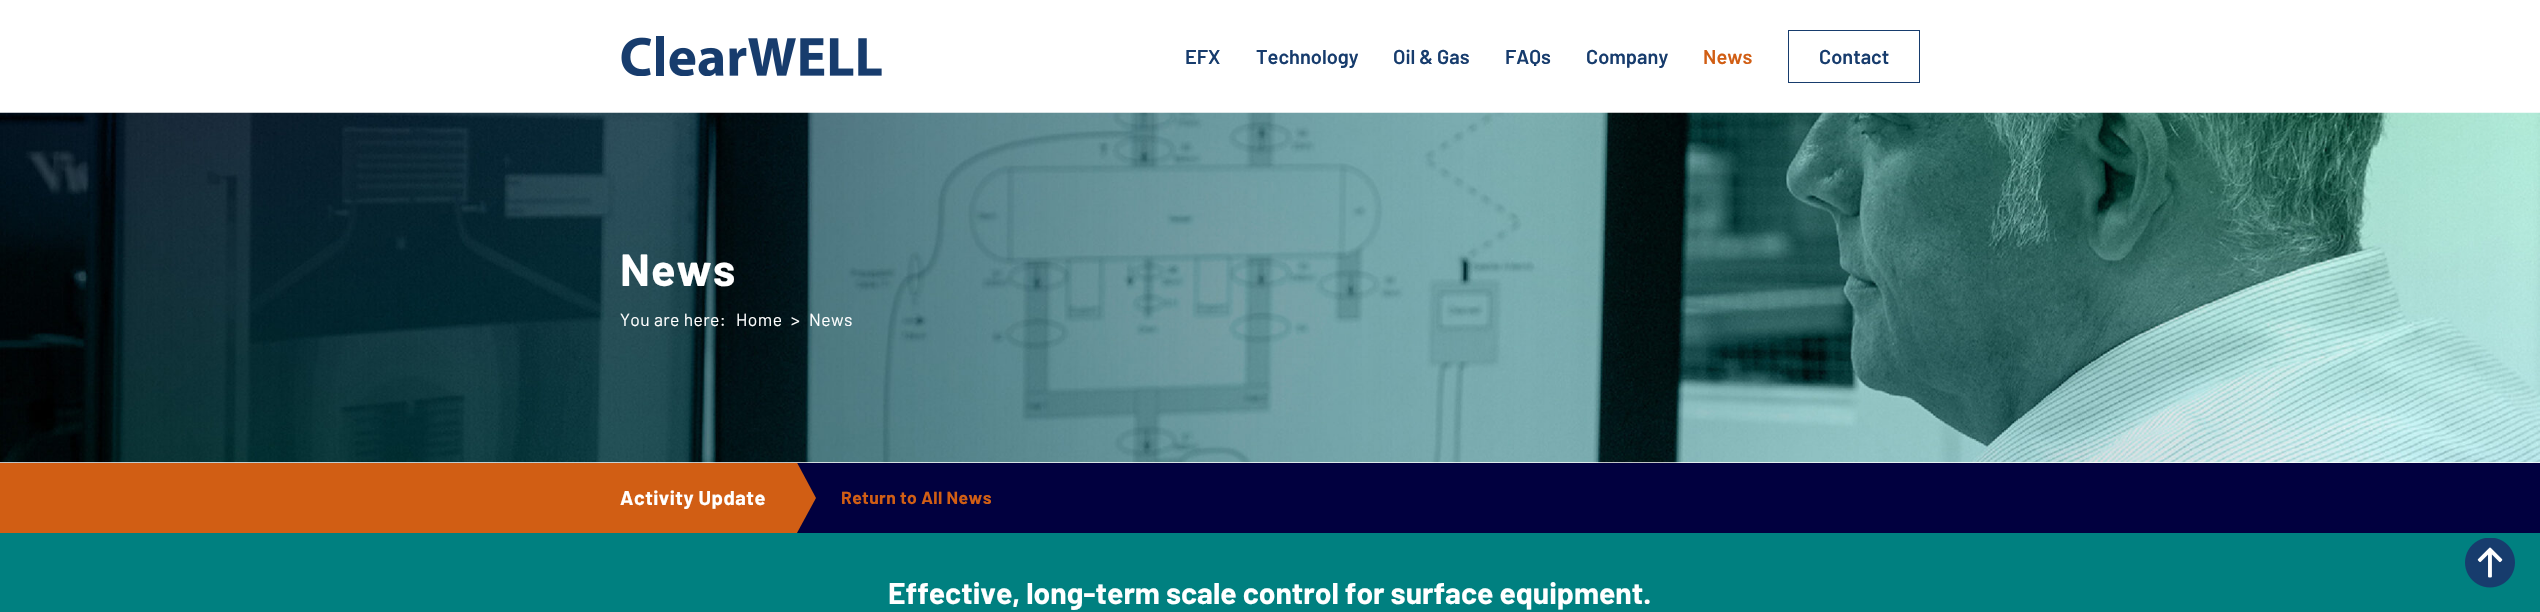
void draw(SkCanvas* canvas) {
    SkPaint paint;
    paint.setAntiAlias(true);
    auto face = [&](const char* family, int weight, float size, bool italic = false) {
        SkFontStyle style(weight, SkFontStyle::kNormal_Width,
            italic ? SkFontStyle::kItalic_Slant : SkFontStyle::kUpright_Slant);
        SkFont result(fontMgr->matchFamilyStyle(family, style), size);
        result.setSubpixel(true);
        return result;
    };
    auto write = [&](const char* s, float x, float y, const SkFont& font, SkColor color) {
        SkPaint ink(SkColor4f::FromColor(color));
        ink.setAntiAlias(true);
        canvas->drawString(s, x, y, font, ink);
    };
    auto writeSpaced = [&](const char* s, float x, float y, const SkFont& font, const SkPaint& ink, float letter, float word) {
        std::vector<SkGlyphID> glyphs(font.countText(s, strlen(s), SkTextEncoding::kUTF8));
        std::vector<float> xs(glyphs.size());
        font.textToGlyphs(s, strlen(s), SkTextEncoding::kUTF8, glyphs);
        font.getXPos(glyphs, xs, x);
        float extra = 0;
        for (size_t i = 0; i < glyphs.size(); i++) {
            xs[i] += extra;
            extra += letter + word * (glyphs[i] == font.unicharToGlyph(' '));
        }
        canvas->drawTextBlob(SkTextBlob::MakeFromPosHGlyphs(glyphs, xs, y, font), 0, 0, ink);
    };
    auto block = [&](float x, float y, float w, float h, SkColor color) {
        SkPaint ink(SkColor4f::FromColor(color));
        ink.setAntiAlias(true);
        canvas->drawRect(SkRect::MakeXYWH(x, y, w, h), ink);
    };
    auto paste = [&](const char* path, float x, float y, float w, float h) {
        auto image = SkImages::DeferredFromEncodedData(SkData::MakeFromFileName(path));
        canvas->drawImageRect(image, SkRect::MakeXYWH(x, y, w, h), SkSamplingOptions());
    };
    canvas->clear(SK_ColorWHITE);
    paste("pic1.png", 621, 36, 261, 40);
    auto kFont1 = face("Barlow", 600, 20);
    write("EFX", 1185, 64, kFont1, SkColorSetRGB(23, 60, 109));
    write("Technology", 1256, 64, kFont1, SkColorSetRGB(23, 60, 109));
    write("Oil & Gas", 1393, 64, kFont1, SkColorSetRGB(23, 60, 109));
    write("FAQs", 1505, 64, kFont1, SkColorSetRGB(23, 60, 109));
    write("Company", 1586, 64, kFont1, SkColorSetRGB(23, 60, 109));
    write("News", 1703, 64, kFont1, SkColorSetRGB(209, 94, 20));
    paint.setStyle(SkPaint::kStroke_Style);
    paint.setStrokeWidth(1);
    paint.setColor(SkColorSetRGB(23, 60, 109));
    canvas->drawRect(SkRect::MakeXYWH(1788.5f, 30.5f, 131, 52), paint);
    write("Contact", 1819, 64, kFont1, SkColorSetRGB(23, 60, 109));
    paste("pic2.png", 0, 112, 2540, 351);
    auto kFont2 = face("Barlow", 700, 45);
    paint.setStyle(SkPaint::kFill_Style);
    paint.setColor(SK_ColorWHITE);
    writeSpaced("News", 620, 286, kFont2, paint, 1, 0);
    auto kFont3 = face("Barlow", 400, 17.5f);
    writeSpaced("You are here:", 620, 326, kFont3, paint, 0.4f, 0);
    writeSpaced("Home", 736, 326, kFont3, paint, 0.4f, 0);
    writeSpaced(">", 791, 326, kFont3, paint, 0.4f, 0);
    writeSpaced("News", 809, 326, kFont3, paint, 0.4f, 0);
    block(0, 463, 620, 70, SkColorSetRGB(209, 94, 20));
    block(1920, 463, 620, 70, SkColorSetRGB(1, 0, 63));
    block(797, 463, 1123, 70, SkColorSetRGB(1, 0, 63));
    canvas->save();
    canvas->clipRect(SkRect::MakeXYWH(620, 463, 196, 70));
    paint.setColor(SkColorSetRGB(209, 94, 20));
    canvas->drawPath(SkPathBuilder().moveTo(779, 429).lineTo(301, 429).lineTo(301, 566).lineTo(779, 566).lineTo(816, 498).close().detach(), paint);
    canvas->restore();
    auto kFont4 = face("Barlow", 700, 20);
    paint.setColor(SK_ColorWHITE);
    writeSpaced("Activity Update", 620, 505, kFont4, paint, 0.5f, 0);
    auto kFont5 = face("Barlow", 700, 17.5f);
    paint.setColor(SkColorSetRGB(209, 94, 20));
    writeSpaced("Return to All News", 841, 504, kFont5, paint, 0.4f, 0);
    block(0, 533, 2540, 79, SkColorSetRGB(0, 128, 128));
    auto kFont6 = face("Barlow", 700, 30);
    write("Effective, long-term scale control for surface equipment.", 888, 604, kFont6, SK_ColorWHITE);
    paste("pic3.png", 2465, 538, 50, 50);
}
